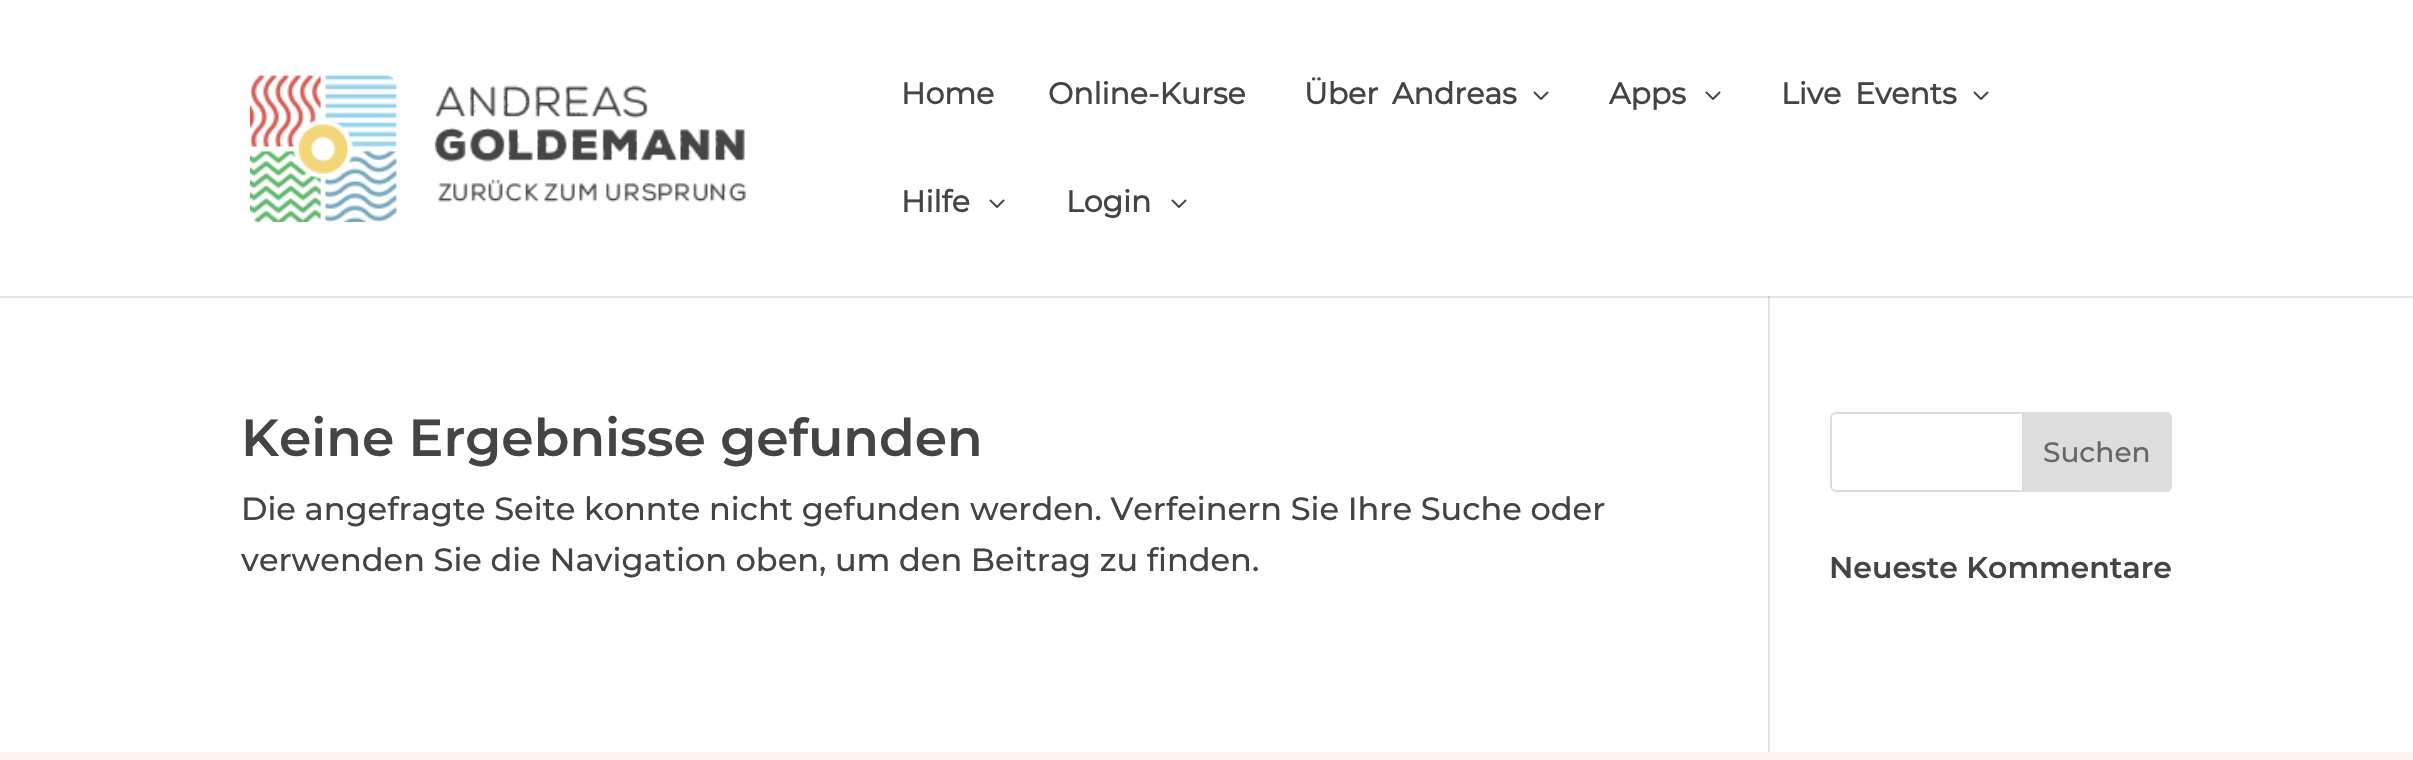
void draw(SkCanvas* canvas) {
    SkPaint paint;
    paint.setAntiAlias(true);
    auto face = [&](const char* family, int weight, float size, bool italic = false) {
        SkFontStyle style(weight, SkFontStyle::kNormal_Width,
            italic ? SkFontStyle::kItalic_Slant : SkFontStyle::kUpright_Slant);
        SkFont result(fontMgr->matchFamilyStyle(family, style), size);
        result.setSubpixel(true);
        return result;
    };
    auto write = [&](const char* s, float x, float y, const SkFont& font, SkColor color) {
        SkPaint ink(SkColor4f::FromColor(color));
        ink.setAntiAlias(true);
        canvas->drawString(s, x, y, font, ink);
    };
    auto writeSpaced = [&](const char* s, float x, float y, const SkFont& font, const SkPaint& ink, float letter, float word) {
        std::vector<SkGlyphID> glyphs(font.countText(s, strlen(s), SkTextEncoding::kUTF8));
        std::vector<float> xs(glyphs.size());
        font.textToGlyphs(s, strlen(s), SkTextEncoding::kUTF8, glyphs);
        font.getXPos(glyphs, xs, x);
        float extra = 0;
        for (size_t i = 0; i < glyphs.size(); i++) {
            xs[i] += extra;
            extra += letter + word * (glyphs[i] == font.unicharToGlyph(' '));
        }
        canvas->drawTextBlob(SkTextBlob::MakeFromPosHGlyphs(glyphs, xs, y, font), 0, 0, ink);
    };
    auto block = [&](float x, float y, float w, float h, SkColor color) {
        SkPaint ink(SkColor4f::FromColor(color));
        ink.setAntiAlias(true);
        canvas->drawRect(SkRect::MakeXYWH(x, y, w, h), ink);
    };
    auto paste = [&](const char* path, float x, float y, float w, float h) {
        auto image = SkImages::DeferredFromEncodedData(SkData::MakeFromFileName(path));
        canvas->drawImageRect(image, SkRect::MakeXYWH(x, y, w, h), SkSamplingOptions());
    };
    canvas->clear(SK_ColorWHITE);
    block(0, 296, 2413, 2, SkColorSetRGB(230, 230, 230));
    paste("pic1.png", 250, 75, 496, 147);
    auto kFont1 = face("Montserrat", 700, 30);
    write("Home", 901, 104, kFont1, SkColorSetRGB(68, 68, 68));
    write("Online-Kurse", 1048, 104, kFont1, SkColorSetRGB(68, 68, 68));
    paint.setColor(SkColorSetRGB(68, 68, 68));
    writeSpaced("Über Andreas", 1304, 104, kFont1, paint, 0, 6);
    paste("pic2.png", 1533, 91, 16, 9);
    write("Apps", 1609, 104, kFont1, SkColorSetRGB(68, 68, 68));
    paste("pic2.png", 1705, 91, 16, 9);
    writeSpaced("Live Events", 1781, 104, kFont1, paint, 0, 6);
    paste("pic2.png", 1973, 91, 16, 9);
    write("Hilfe", 901, 212, kFont1, SkColorSetRGB(68, 68, 68));
    paste("pic2.png", 989, 199, 16, 9);
    write("Login", 1066, 212, kFont1, SkColorSetRGB(68, 68, 68));
    paste("pic2.png", 1171, 199, 16, 9);
    block(1768, 296, 2, 456, SkColorSetRGB(226, 226, 226));
    block(1768, 296, 2, 2, SkColorSetRGB(203, 203, 203));
    auto kFont2 = face("Montserrat", 600, 52);
    write("Keine Ergebnisse gefunden", 241, 456, kFont2, SkColorSetRGB(68, 68, 68));
    auto kFont3 = face("Montserrat", 500, 32);
    write("Die angefragte Seite konnte nicht gefunden werden. Verfeinern Sie Ihre Suche oder", 241, 520, kFont3, SkColorSetRGB(68, 68, 68));
    write("verwenden Sie die Navigation oben, um den Beitrag zu finden.", 241, 571, kFont3, SkColorSetRGB(68, 68, 68));
    paint.setStyle(SkPaint::kStroke_Style);
    paint.setStrokeWidth(2);
    paint.setColor(SkColorSetRGB(221, 221, 221));
    canvas->drawRoundRect(SkRect::MakeXYWH(1831, 413, 340, 78), 5, 5, paint);
    paint.setStyle(SkPaint::kFill_Style);
    canvas->drawPath(SkPathBuilder().moveTo(2023, 413).lineTo(2166, 413).cubicTo(2169, 413, 2171, 415, 2171, 418).lineTo(2171, 486).cubicTo(2171, 489, 2169, 491, 2166, 491).lineTo(2023, 491).close().detach(), paint);
    paint.setStyle(SkPaint::kStroke_Style);
    canvas->drawPath(SkPathBuilder().moveTo(2023, 413).lineTo(2166, 413).cubicTo(2169, 413, 2171, 415, 2171, 418).lineTo(2171, 486).cubicTo(2171, 489, 2169, 491, 2166, 491).lineTo(2023, 491).close().detach(), paint);
    auto kFont4 = face("Montserrat", 500, 28);
    write("Suchen", 2043, 462, kFont4, SkColorSetRGB(102, 102, 102));
    auto kFont5 = face("Montserrat", 600, 30);
    write("Neueste Kommentare", 1829, 578, kFont5, SkColorSetRGB(68, 68, 68));
    block(0, 752, 2413, 8, SkColorSetRGB(250, 245, 239));
}
